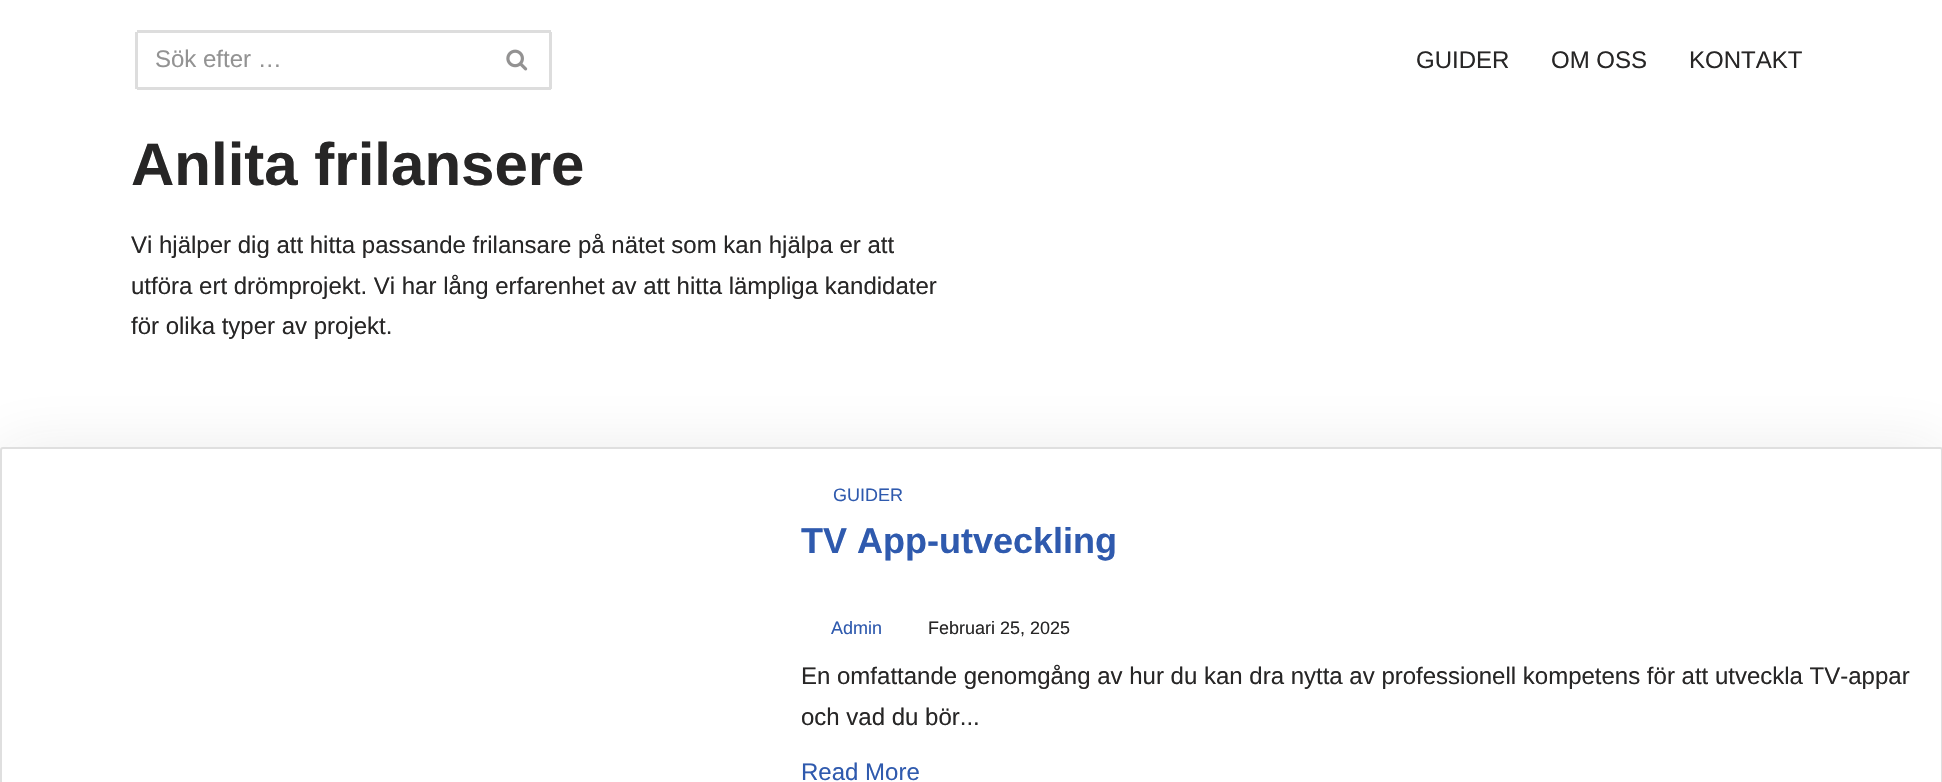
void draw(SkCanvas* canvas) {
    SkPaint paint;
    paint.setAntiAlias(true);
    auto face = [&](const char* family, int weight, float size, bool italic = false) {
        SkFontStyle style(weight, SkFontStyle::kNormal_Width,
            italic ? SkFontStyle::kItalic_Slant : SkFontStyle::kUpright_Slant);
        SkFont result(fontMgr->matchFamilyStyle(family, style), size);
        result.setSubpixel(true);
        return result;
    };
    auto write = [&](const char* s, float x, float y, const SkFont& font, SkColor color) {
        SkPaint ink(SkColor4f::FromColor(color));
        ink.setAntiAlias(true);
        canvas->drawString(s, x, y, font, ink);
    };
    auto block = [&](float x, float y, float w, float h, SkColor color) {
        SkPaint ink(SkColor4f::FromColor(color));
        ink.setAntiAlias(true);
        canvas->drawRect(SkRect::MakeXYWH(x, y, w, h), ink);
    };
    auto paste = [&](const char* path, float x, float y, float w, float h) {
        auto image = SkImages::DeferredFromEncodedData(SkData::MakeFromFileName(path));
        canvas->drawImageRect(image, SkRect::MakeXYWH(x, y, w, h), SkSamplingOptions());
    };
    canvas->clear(SK_ColorWHITE);
    block(137, 30, 414, 3, SkColorSetRGB(221, 221, 221));
    block(137, 87, 348, 3, SkColorSetRGB(221, 221, 221));
    block(135, 32, 3, 57, SkColorSetRGB(221, 221, 221));
    auto kFont1 = face("Liberation Sans", 400, 24);
    write("Sök efter …", 155, 67, kFont1, SkColorSetRGB(147, 147, 147));
    block(549, 32, 3, 57, SkColorSetRGB(221, 221, 221));
    block(485, 87, 66, 3, SkColorSetRGB(221, 221, 221));
    paste("pic1.png", 506, 49, 22, 22);
    write("GUIDER", 1416, 68, kFont1, SkColorSetRGB(39, 38, 38));
    write("OM OSS", 1551, 68, kFont1, SkColorSetRGB(39, 38, 38));
    write("KONTAKT", 1689, 68, kFont1, SkColorSetRGB(39, 38, 38));
    auto kFont2 = face("Liberation Sans", 700, 60);
    write("Anlita frilansere", 131, 185, kFont2, SkColorSetRGB(39, 38, 38));
    write("Vi hjälper dig att hitta passande frilansare på nätet som kan hjälpa er att", 131, 253, kFont1, SkColorSetRGB(39, 38, 38));
    write("utföra ert drömprojekt. Vi har lång erfarenhet av att hitta lämpliga kandidater", 131, 294, kFont1, SkColorSetRGB(39, 38, 38));
    write("för olika typer av projekt.", 131, 334, kFont1, SkColorSetRGB(39, 38, 38));
    paint.setColor(SkColorSetARGB(26, 36, 36, 36));
    paint.setMaskFilter(SkMaskFilter::MakeBlur(kNormal_SkBlurStyle, 33.5f));
    canvas->drawRoundRect(SkRect::MakeXYWH(0, 452, 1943, 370), 3, 3, paint);
    paint.setMaskFilter(nullptr);
    paint.setColor(SK_ColorWHITE);
    canvas->drawRoundRect(SkRect::MakeXYWH(1, 448, 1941, 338), 2, 2, paint);
    paint.setStyle(SkPaint::kStroke_Style);
    paint.setStrokeWidth(2);
    paint.setColor(SkColorSetRGB(223, 223, 223));
    canvas->drawRoundRect(SkRect::MakeXYWH(1, 448, 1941, 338), 2, 2, paint);
    auto kFont3 = face("Liberation Sans", 400, 18);
    write("GUIDER", 833, 501, kFont3, SkColorSetRGB(47, 90, 174));
    auto kFont4 = face("Liberation Sans", 700, 36);
    write("TV App-utveckling", 801, 553, kFont4, SkColorSetRGB(47, 90, 174));
    write("Admin", 831, 634, kFont3, SkColorSetRGB(47, 90, 174));
    write("Februari 25, 2025", 928, 634, kFont3, SkColorSetRGB(39, 38, 38));
    write("En omfattande genomgång av hur du kan dra nytta av professionell kompetens för att utveckla TV-appar", 801, 684, kFont1, SkColorSetRGB(39, 38, 38));
    write("och vad du bör...", 801, 725, kFont1, SkColorSetRGB(39, 38, 38));
    write("Read More", 801, 780, kFont1, SkColorSetRGB(47, 90, 174));
}
